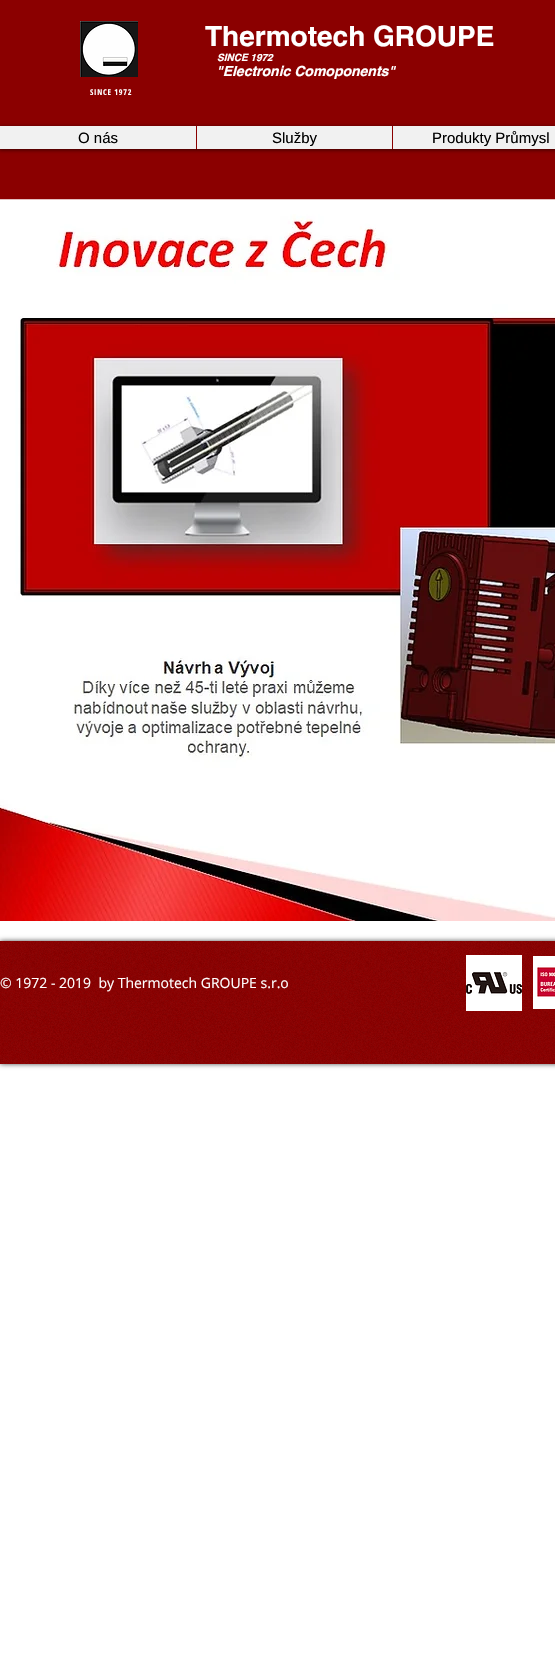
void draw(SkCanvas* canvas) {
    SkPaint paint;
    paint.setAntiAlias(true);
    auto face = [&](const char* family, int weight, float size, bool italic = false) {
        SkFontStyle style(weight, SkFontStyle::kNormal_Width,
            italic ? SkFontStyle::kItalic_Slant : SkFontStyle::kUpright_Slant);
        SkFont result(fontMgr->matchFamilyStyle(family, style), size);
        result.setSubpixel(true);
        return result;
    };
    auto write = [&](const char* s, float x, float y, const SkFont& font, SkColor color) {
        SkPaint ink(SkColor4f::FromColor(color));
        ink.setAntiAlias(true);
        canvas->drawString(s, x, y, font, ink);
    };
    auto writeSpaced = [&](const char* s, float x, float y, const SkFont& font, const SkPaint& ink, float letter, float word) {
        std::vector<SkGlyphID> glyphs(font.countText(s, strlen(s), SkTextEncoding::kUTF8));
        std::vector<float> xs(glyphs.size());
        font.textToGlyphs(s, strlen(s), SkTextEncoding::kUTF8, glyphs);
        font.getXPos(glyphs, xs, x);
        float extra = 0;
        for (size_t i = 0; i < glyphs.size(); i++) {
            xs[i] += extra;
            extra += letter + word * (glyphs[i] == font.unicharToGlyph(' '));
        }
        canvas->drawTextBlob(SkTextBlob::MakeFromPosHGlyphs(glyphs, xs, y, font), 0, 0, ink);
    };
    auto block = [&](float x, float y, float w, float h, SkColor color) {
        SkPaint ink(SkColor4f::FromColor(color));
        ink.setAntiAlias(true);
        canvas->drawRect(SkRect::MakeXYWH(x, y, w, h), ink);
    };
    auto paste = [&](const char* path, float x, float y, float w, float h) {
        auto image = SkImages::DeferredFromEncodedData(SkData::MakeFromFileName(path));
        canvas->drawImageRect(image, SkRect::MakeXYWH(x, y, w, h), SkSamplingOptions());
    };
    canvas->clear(SK_ColorWHITE);
    block(0, 0, 555, 199, SkColorSetRGB(139, 0, 0));
    block(0, 199, 555, 1, SkColorSetRGB(226, 191, 191));
    paste("pic1.png", 80, 21, 58, 56);
    auto kFont1 = face("helvetica", 700, 28);
    write("Thermotech GROUPE", 205, 46, kFont1, SK_ColorWHITE);
    auto kFont2 = face("helvetica", 700, 10, true);
    write("SINCE 1972", 217, 61, kFont2, SK_ColorWHITE);
    auto kFont3 = face("helvetica", 700, 14, true);
    write("\"Electronic Comoponents\"", 216, 76, kFont3, SK_ColorWHITE);
    auto kFont4 = face("Open Sans Condensed", 700, 8);
    paint.setColor(SK_ColorWHITE);
    writeSpaced("SINCE 1972", 90, 95, kFont4, paint, 0.75f, 0);
    paint.setColor(SkColorSetARGB(153, 0, 0, 0));
    paint.setMaskFilter(SkMaskFilter::MakeBlur(kNormal_SkBlurStyle, 2));
    canvas->drawRect(SkRect::MakeXYWH(-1, 127, 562, 23), paint);
    paint.setMaskFilter(nullptr);
    block(0, 126, 555, 23, SkColorSetRGB(241, 241, 241));
    auto kFont5 = face("Liberation Sans", 400, 15);
    write("O nás", 78, 143, kFont5, SK_ColorBLACK);
    block(196, 126, 1, 23, SkColorSetRGB(139, 0, 0));
    write("Služby", 272, 143, kFont5, SK_ColorBLACK);
    block(392, 126, 1, 23, SkColorSetRGB(139, 0, 0));
    write("Produkty Průmysl", 432, 143, kFont5, SK_ColorBLACK);
    paste("pic2.png", 0, 214, 555, 707);
    paint.setColor(SkColorSetARGB(179, 0, 0, 0));
    paint.setMaskFilter(SkMaskFilter::MakeBlur(kNormal_SkBlurStyle, 2.5f));
    canvas->drawRect(SkRect::MakeXYWH(0, 941, 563, 123), paint);
    paint.setMaskFilter(nullptr);
    block(0, 941, 555, 123, SkColorSetRGB(139, 0, 0));
    paste("pic3.png", 0, 941, 555, 123);
    auto kFont6 = face("Open Sans", 400, 14);
    write("© 1972 - 2019  by Thermotech GROUPE s.r.o", 0, 988, kFont6, SK_ColorWHITE);
    paste("pic4.png", 466, 955, 56, 56);
    paste("pic5.png", 533, 956, 22, 53);
}
